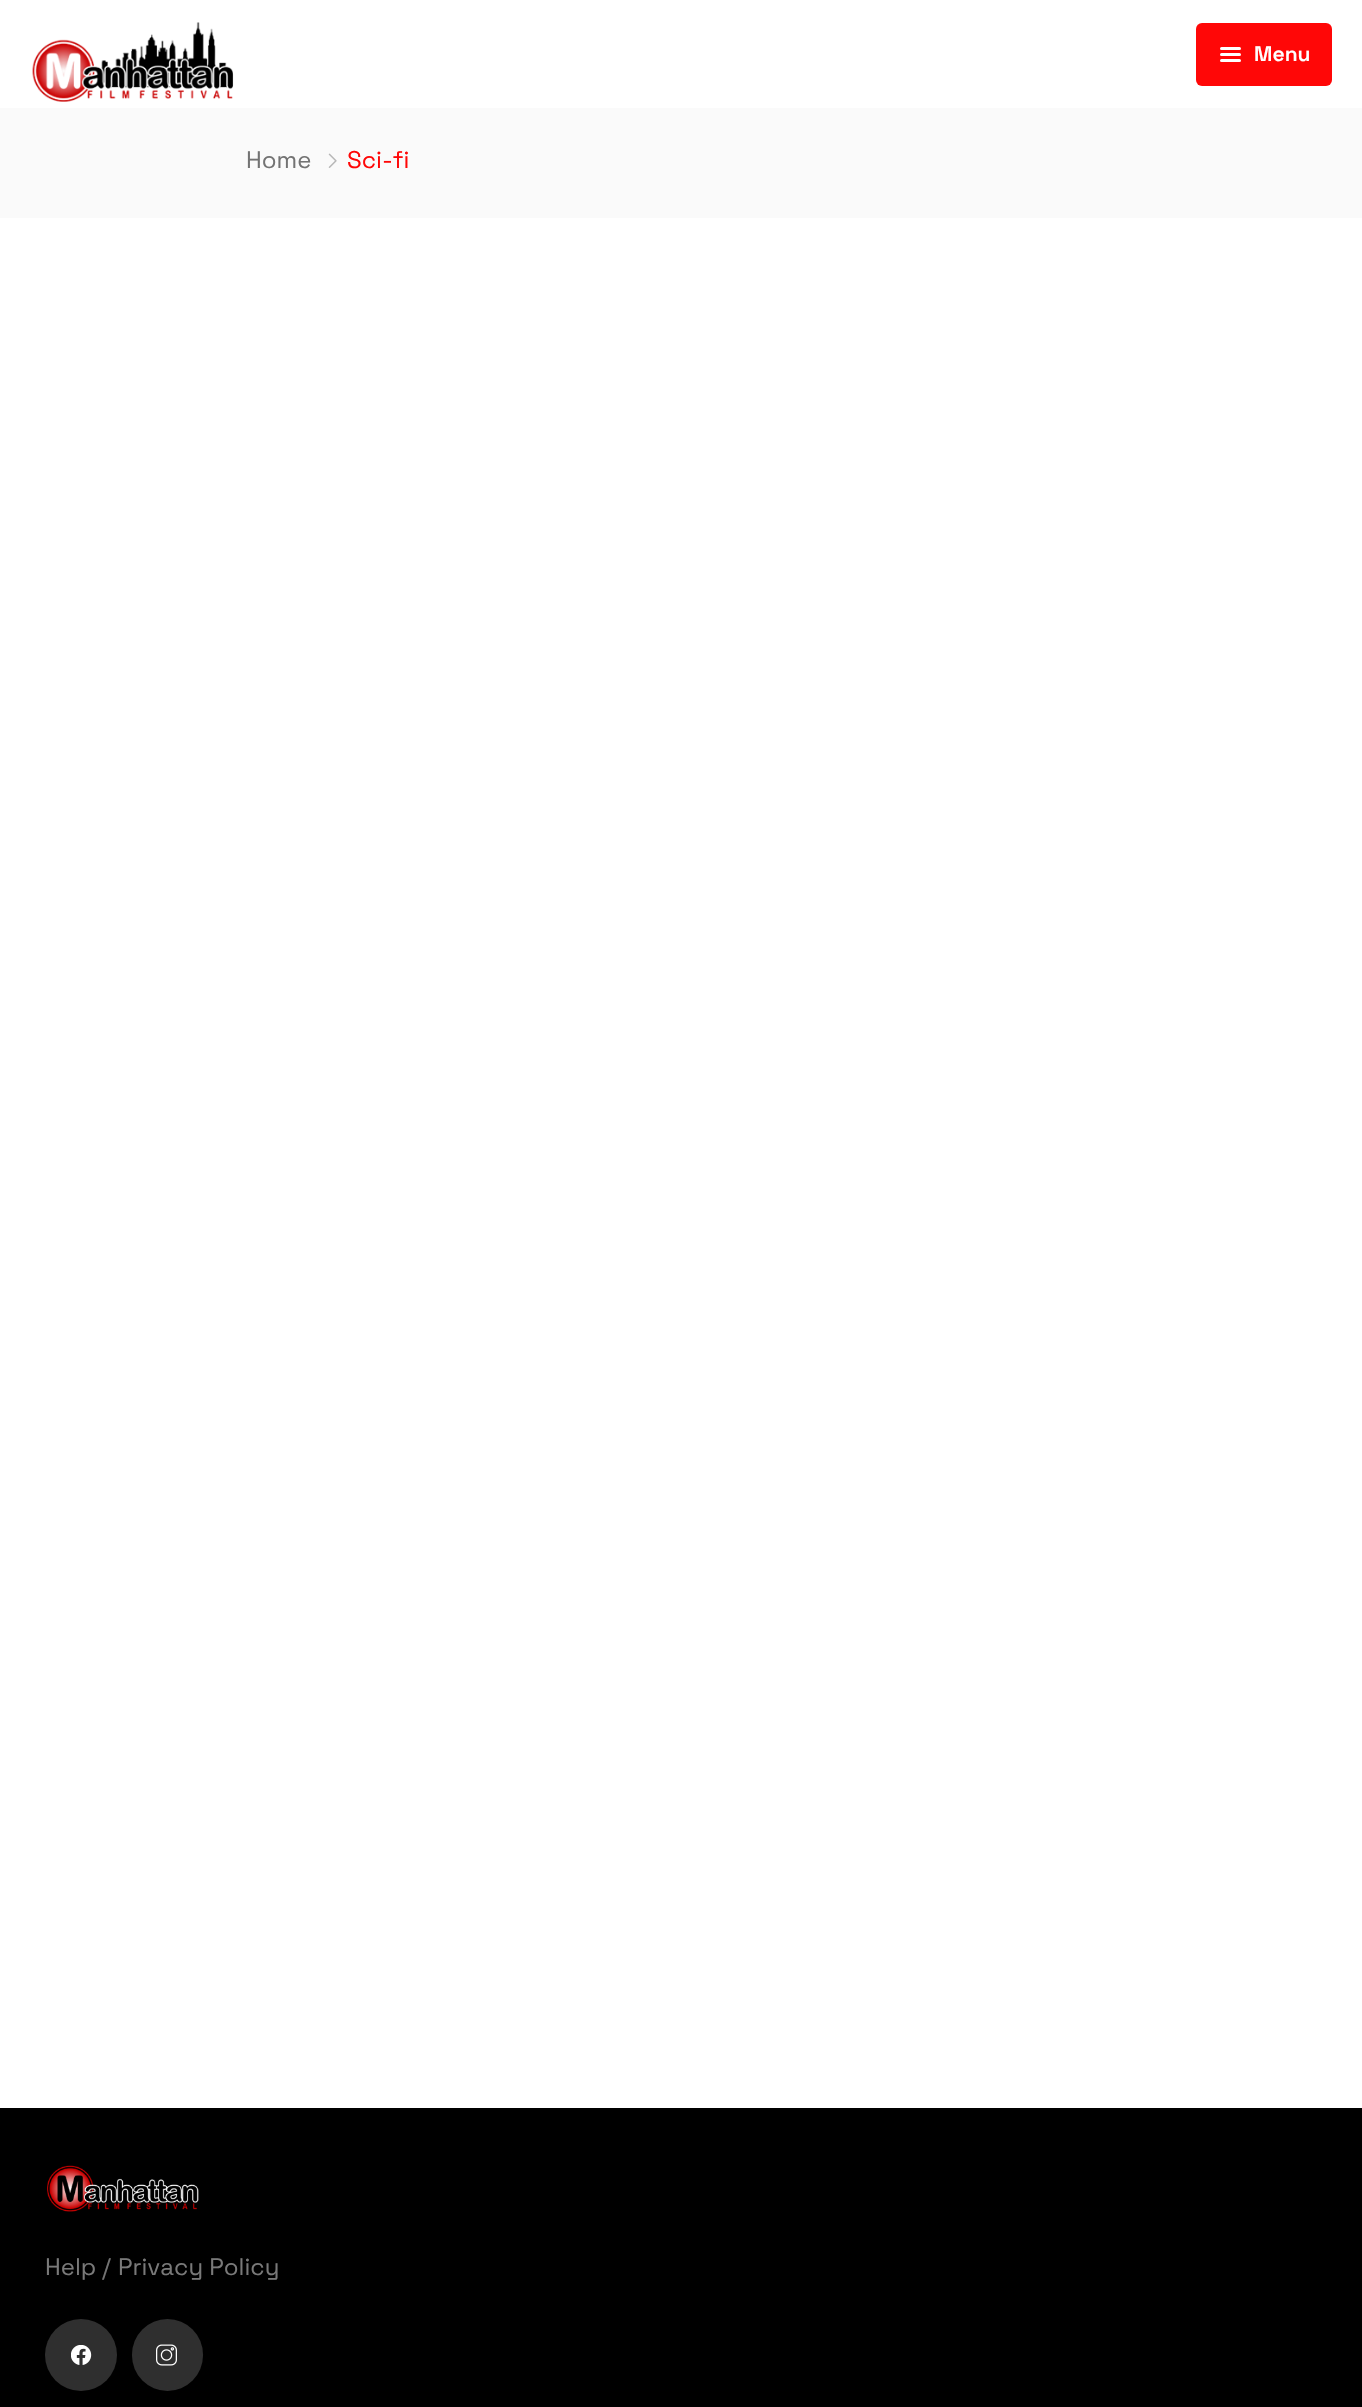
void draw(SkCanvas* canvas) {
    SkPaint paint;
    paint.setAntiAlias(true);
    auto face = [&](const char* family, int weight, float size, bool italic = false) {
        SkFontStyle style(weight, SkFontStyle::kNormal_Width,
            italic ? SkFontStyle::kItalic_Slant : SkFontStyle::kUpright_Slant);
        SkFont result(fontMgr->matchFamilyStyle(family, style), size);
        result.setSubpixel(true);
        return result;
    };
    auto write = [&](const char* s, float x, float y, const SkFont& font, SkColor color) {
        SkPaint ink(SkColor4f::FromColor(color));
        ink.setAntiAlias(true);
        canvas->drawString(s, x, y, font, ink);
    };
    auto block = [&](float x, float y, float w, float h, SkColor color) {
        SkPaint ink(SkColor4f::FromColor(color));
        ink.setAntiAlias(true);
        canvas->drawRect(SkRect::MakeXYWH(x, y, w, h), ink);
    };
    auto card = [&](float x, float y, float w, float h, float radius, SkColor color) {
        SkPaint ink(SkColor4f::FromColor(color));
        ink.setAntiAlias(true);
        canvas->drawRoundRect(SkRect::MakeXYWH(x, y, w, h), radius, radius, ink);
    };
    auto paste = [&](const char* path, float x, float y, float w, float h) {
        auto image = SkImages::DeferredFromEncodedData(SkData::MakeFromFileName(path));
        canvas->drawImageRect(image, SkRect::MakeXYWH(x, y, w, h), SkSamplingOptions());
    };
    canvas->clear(SK_ColorWHITE);
    paste("pic1.png", 32, 22, 202, 80);
    card(1196, 23, 136, 63, 6, SkColorSetRGB(255, 7, 7));
    card(1220, 47, 21, 3, 1.5f, SK_ColorWHITE);
    card(1220, 53, 21, 3, 1.5f, SK_ColorWHITE);
    auto kFont1 = face("Space Grotesk", 600, 21);
    write("Menu", 1254, 61, kFont1, SK_ColorWHITE);
    card(1220, 59, 21, 3, 1.5f, SK_ColorWHITE);
    block(0, 108, 1362, 110, SkColorSetRGB(250, 250, 250));
    auto kFont2 = face("Space Grotesk", 400, 24);
    write("Home", 246, 168, kFont2, SkColorSetRGB(115, 115, 115));
    paste("pic2.png", 328, 153, 9, 15);
    write("Sci-fi", 347, 168, kFont2, SkColorSetRGB(255, 7, 7));
    block(0, 2108, 1362, 299, SK_ColorBLACK);
    paste("pic3.png", 47, 2165, 152, 47);
    write("Help", 45, 2275, kFont2, SkColorSetRGB(121, 121, 121));
    write("/", 102, 2275, kFont2, SkColorSetRGB(115, 115, 115));
    write("Privacy Policy", 118, 2275, kFont2, SkColorSetRGB(121, 121, 121));
    paint.setColor(SkColorSetRGB(47, 47, 47));
    canvas->drawCircle(81, 2355, 36, paint);
    paste("pic4.png", 71, 2345, 21, 20);
    card(132, 2319, 71, 72, 35.5f, SkColorSetRGB(47, 47, 47));
    paste("pic5.png", 156, 2344, 21, 22);
}
